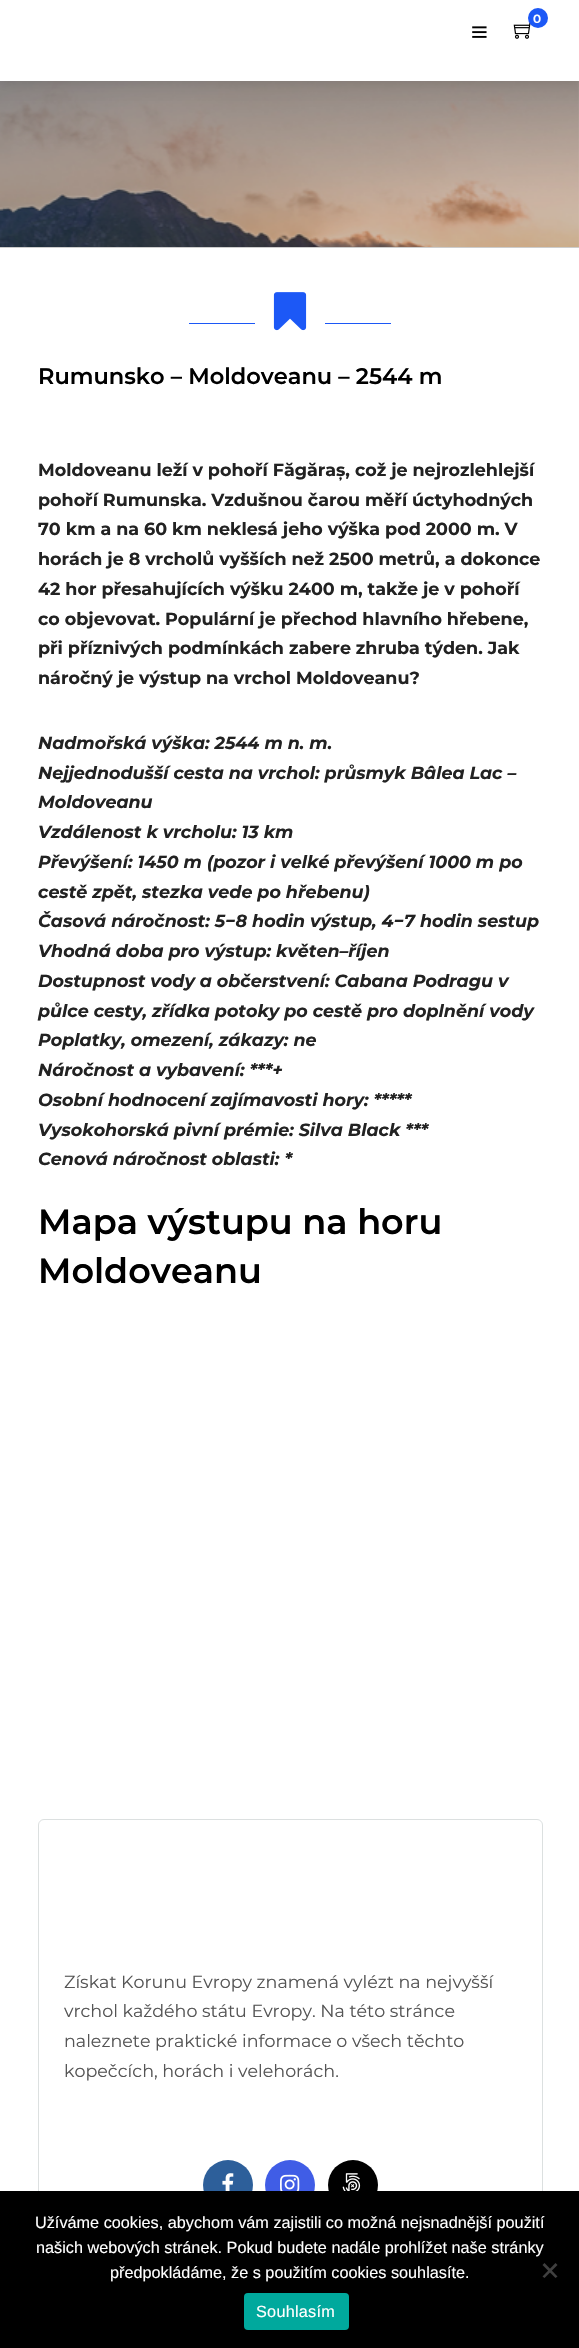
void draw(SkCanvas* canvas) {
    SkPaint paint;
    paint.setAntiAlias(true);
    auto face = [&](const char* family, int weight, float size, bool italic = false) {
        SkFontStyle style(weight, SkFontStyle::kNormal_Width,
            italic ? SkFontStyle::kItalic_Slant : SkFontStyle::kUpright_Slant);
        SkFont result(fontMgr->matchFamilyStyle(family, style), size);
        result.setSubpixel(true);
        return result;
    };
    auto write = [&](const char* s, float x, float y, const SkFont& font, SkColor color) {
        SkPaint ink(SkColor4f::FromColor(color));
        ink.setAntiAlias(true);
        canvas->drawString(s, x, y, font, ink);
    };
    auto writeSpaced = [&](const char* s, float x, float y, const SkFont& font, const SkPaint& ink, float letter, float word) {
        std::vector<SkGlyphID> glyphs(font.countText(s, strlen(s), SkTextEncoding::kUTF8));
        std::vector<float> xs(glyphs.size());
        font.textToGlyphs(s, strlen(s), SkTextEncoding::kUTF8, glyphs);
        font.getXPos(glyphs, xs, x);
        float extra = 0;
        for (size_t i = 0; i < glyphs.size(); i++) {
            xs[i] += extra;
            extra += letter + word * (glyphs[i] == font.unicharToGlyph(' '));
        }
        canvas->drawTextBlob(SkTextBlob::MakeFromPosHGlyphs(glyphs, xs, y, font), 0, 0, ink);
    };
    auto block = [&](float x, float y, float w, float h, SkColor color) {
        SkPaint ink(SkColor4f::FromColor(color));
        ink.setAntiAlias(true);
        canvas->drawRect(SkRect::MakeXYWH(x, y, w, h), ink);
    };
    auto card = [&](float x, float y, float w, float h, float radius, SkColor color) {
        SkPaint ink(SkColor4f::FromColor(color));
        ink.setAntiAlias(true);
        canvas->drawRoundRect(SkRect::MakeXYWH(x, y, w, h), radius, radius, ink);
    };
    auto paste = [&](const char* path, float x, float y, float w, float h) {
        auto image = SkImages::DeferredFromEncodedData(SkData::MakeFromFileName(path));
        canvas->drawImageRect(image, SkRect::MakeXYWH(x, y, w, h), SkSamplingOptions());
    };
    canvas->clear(SK_ColorWHITE);
    block(0, 81, 579, 167, SkColorSetRGB(204, 204, 204));
    paste("pic3.png", 0, 81, 579, 166);
    paint.setColor(SkColorSetARGB(26, 0, 0, 0));
    paint.setMaskFilter(SkMaskFilter::MakeBlur(kNormal_SkBlurStyle, 6));
    canvas->drawRect(SkRect::MakeXYWH(0, 1, 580, 82), paint);
    paint.setMaskFilter(nullptr);
    block(0, 0, 579, 81, SK_ColorWHITE);
    paste("pic1.png", 513, 22, 18, 17);
    paint.setColor(SkColorSetRGB(28, 88, 246));
    canvas->drawCircle(538, 18, 10, paint);
    auto kFont1 = face("Montserrat", 600, 12);
    write("0", 533, 23, kFont1, SK_ColorWHITE);
    paste("pic2.png", 472, 26, 15, 12);
    block(189, 323, 202, 1, SkColorSetRGB(28, 88, 246));
    block(255, 323, 70, 1, SK_ColorWHITE);
    paste("pic4.png", 273, 292, 34, 39);
    auto kFont2 = face("Montserrat", 600, 22.5f);
    write("Rumunsko – Moldoveanu – 2544 m", 38, 384, kFont2, SK_ColorBLACK);
    auto kFont3 = face("Montserrat", 700, 17.5f);
    write("Moldoveanu leží v pohoří Făgăraș, což je nejrozlehlejší", 38, 476, kFont3, SkColorSetRGB(34, 34, 34));
    write("pohoří Rumunska. Vzdušnou čarou měří úctyhodných", 38, 506, kFont3, SkColorSetRGB(34, 34, 34));
    write("70 km a na 60 km neklesá jeho výška pod 2000 m. V", 38, 535, kFont3, SkColorSetRGB(34, 34, 34));
    write("horách je 8 vrcholů vyšších než 2500 metrů, a dokonce", 38, 565, kFont3, SkColorSetRGB(34, 34, 34));
    write("42 hor přesahujících výšku 2400 m, takže je v pohoří", 38, 595, kFont3, SkColorSetRGB(34, 34, 34));
    write("co objevovat. Populární je přechod hlavního hřebene,", 38, 625, kFont3, SkColorSetRGB(34, 34, 34));
    write("při příznivých podmínkách zabere zhruba týden. Jak", 38, 654, kFont3, SkColorSetRGB(34, 34, 34));
    write("náročný je výstup na vrchol Moldoveanu?", 38, 684, kFont3, SkColorSetRGB(34, 34, 34));
    auto kFont4 = face("Montserrat", 700, 17.5f, true);
    write("Nadmořská výška: 2544 m n. m.", 38, 749, kFont4, SkColorSetRGB(34, 34, 34));
    write("Nejjednodušší cesta na vrchol: průsmyk Bâlea Lac –", 38, 779, kFont4, SkColorSetRGB(34, 34, 34));
    write("Moldoveanu", 38, 808, kFont4, SkColorSetRGB(34, 34, 34));
    write("Vzdálenost k vrcholu: 13 km", 38, 838, kFont4, SkColorSetRGB(34, 34, 34));
    write("Převýšení: 1450 m (pozor i velké převýšení 1000 m po", 38, 868, kFont4, SkColorSetRGB(34, 34, 34));
    write("cestě zpět, stezka vede po hřebenu)", 38, 898, kFont4, SkColorSetRGB(34, 34, 34));
    write("Časová náročnost: 5−8 hodin výstup, 4−7 hodin sestup", 38, 927, kFont4, SkColorSetRGB(34, 34, 34));
    write("Vhodná doba pro výstup: květen–říjen", 38, 957, kFont4, SkColorSetRGB(34, 34, 34));
    write("Dostupnost vody a občerstvení: Cabana Podragu v", 38, 987, kFont4, SkColorSetRGB(34, 34, 34));
    write("půlce cesty, zřídka potoky po cestě pro doplnění vody", 38, 1017, kFont4, SkColorSetRGB(34, 34, 34));
    write("Poplatky, omezení, zákazy: ne", 38, 1046, kFont4, SkColorSetRGB(34, 34, 34));
    write("Náročnost a vybavení: ***+", 38, 1076, kFont4, SkColorSetRGB(34, 34, 34));
    write("Osobní hodnocení zajímavosti hory: *****", 38, 1106, kFont4, SkColorSetRGB(34, 34, 34));
    write("Vysokohorská pivní prémie: Silva Black ***", 38, 1136, kFont4, SkColorSetRGB(34, 34, 34));
    write("Cenová náročnost oblasti: *", 38, 1165, kFont4, SkColorSetRGB(34, 34, 34));
    auto kFont5 = face("Montserrat", 600, 35);
    write("Mapa výstupu na horu", 38, 1234, kFont5, SK_ColorBLACK);
    write("Moldoveanu", 38, 1283, kFont5, SK_ColorBLACK);
    paint.setStyle(SkPaint::kStroke_Style);
    paint.setStrokeWidth(1);
    paint.setColor(SkColorSetRGB(220, 224, 224));
    canvas->drawRoundRect(SkRect::MakeXYWH(38.5f, 1819.5f, 504, 429), 5.5f, 5.5f, paint);
    auto kFont6 = face("Montserrat", 400, 17.5f);
    write("Získat Korunu Evropy znamená vylézt na nejvyšší", 64, 1988, kFont6, SkColorSetRGB(85, 85, 85));
    write("vrchol každého státu Evropy. Na této stránce", 64, 2017, kFont6, SkColorSetRGB(85, 85, 85));
    write("naleznete praktické informace o všech těchto", 64, 2047, kFont6, SkColorSetRGB(85, 85, 85));
    write("kopečcích, horách i velehorách.", 64, 2077, kFont6, SkColorSetRGB(85, 85, 85));
    paint.setStyle(SkPaint::kFill_Style);
    paint.setColor(SkColorSetRGB(45, 95, 154));
    canvas->drawCircle(228, 2185, 25, paint);
    paste("pic5.png", 222, 2173, 12, 18);
    paint.setColor(SkColorSetRGB(64, 93, 230));
    canvas->drawCircle(290, 2185, 25, paint);
    paste("pic6.png", 280, 2174, 20, 17);
    paint.setColor(SK_ColorBLACK);
    canvas->drawCircle(353, 2185, 25, paint);
    paste("pic7.png", 342, 2173, 19, 18);
    block(0, 2191, 579, 157, SK_ColorBLACK);
    auto kFont7 = face("Liberation Sans", 400, 16.25f);
    write("Užíváme cookies, abychom vám zajistili co možná nejsnadnější použití", 35, 2228, kFont7, SK_ColorWHITE);
    write("našich webových stránek. Pokud budete nadále prohlížet naše stránky", 36, 2253, kFont7, SK_ColorWHITE);
    write("předpokládáme, že s použitím cookies souhlasíte.", 110, 2278, kFont7, SK_ColorWHITE);
    paint.setColor(SkColorSetRGB(64, 64, 64));
    canvas->drawPath(SkPathBuilder().moveTo(555.5f, 2263).lineTo(557.5f, 2265).lineTo(544.5f, 2278).lineTo(542.5f, 2276.5f).close().detach(), paint);
    canvas->drawPath(SkPathBuilder().moveTo(542.5f, 2265).lineTo(544.5f, 2263).lineTo(557.5f, 2276.5f).lineTo(555.5f, 2278).close().detach(), paint);
    card(244, 2293, 105, 37, 4, SkColorSetRGB(0, 169, 157));
    paint.setColor(SK_ColorWHITE);
    writeSpaced("Souhlasím", 256, 2317, kFont7, paint, 0.25f, 0);
}
